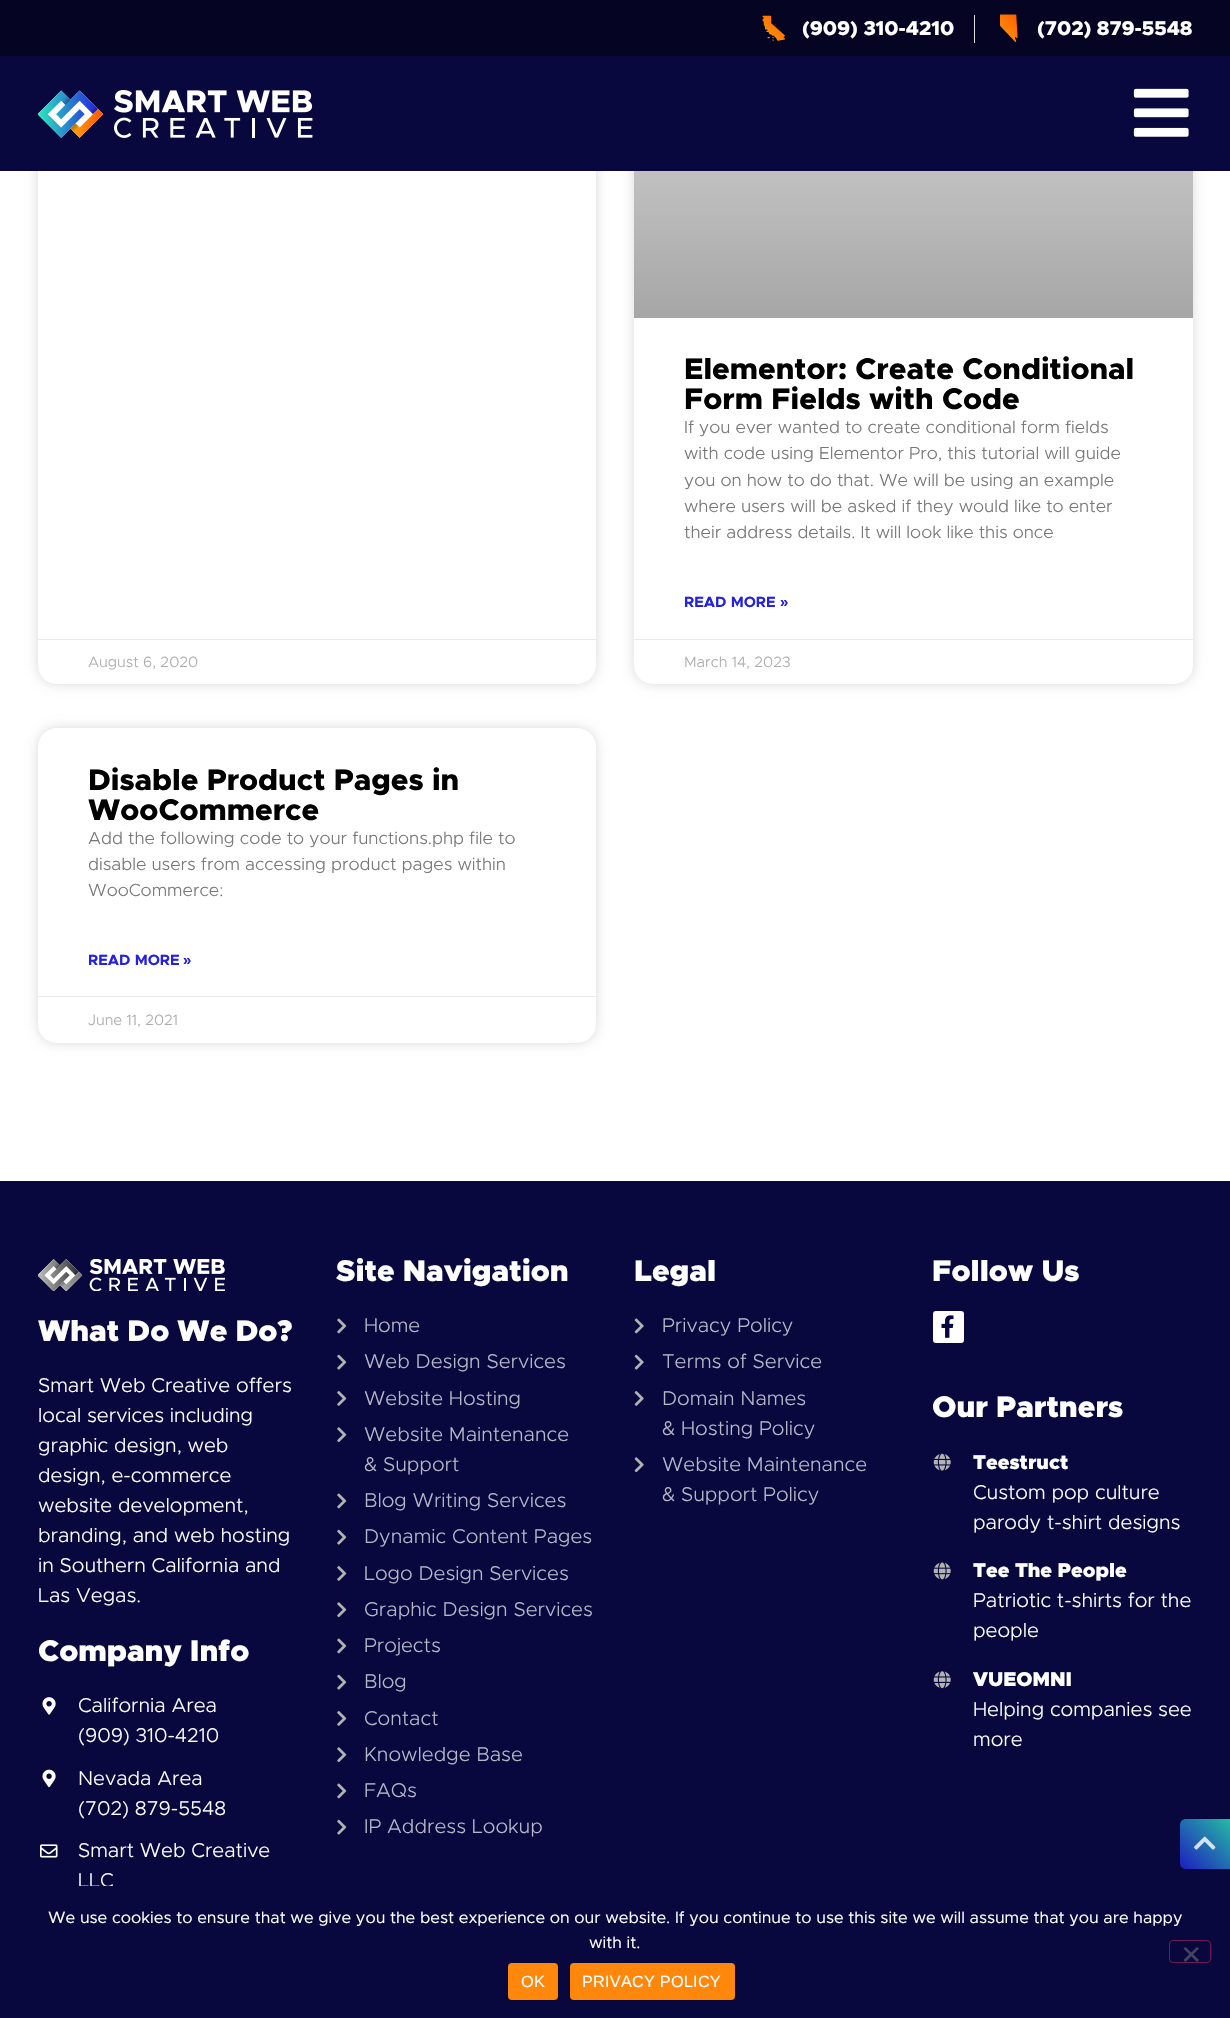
void draw(SkCanvas* canvas) {
    SkPaint paint;
    paint.setAntiAlias(true);
    auto face = [&](const char* family, int weight, float size, bool italic = false) {
        SkFontStyle style(weight, SkFontStyle::kNormal_Width,
            italic ? SkFontStyle::kItalic_Slant : SkFontStyle::kUpright_Slant);
        SkFont result(fontMgr->matchFamilyStyle(family, style), size);
        result.setSubpixel(true);
        return result;
    };
    auto write = [&](const char* s, float x, float y, const SkFont& font, SkColor color) {
        SkPaint ink(SkColor4f::FromColor(color));
        ink.setAntiAlias(true);
        canvas->drawString(s, x, y, font, ink);
    };
    auto writeSpaced = [&](const char* s, float x, float y, const SkFont& font, const SkPaint& ink, float letter, float word) {
        std::vector<SkGlyphID> glyphs(font.countText(s, strlen(s), SkTextEncoding::kUTF8));
        std::vector<float> xs(glyphs.size());
        font.textToGlyphs(s, strlen(s), SkTextEncoding::kUTF8, glyphs);
        font.getXPos(glyphs, xs, x);
        float extra = 0;
        for (size_t i = 0; i < glyphs.size(); i++) {
            xs[i] += extra;
            extra += letter + word * (glyphs[i] == font.unicharToGlyph(' '));
        }
        canvas->drawTextBlob(SkTextBlob::MakeFromPosHGlyphs(glyphs, xs, y, font), 0, 0, ink);
    };
    auto block = [&](float x, float y, float w, float h, SkColor color) {
        SkPaint ink(SkColor4f::FromColor(color));
        ink.setAntiAlias(true);
        canvas->drawRect(SkRect::MakeXYWH(x, y, w, h), ink);
    };
    auto card = [&](float x, float y, float w, float h, float radius, SkColor color) {
        SkPaint ink(SkColor4f::FromColor(color));
        ink.setAntiAlias(true);
        canvas->drawRoundRect(SkRect::MakeXYWH(x, y, w, h), radius, radius, ink);
    };
    auto paste = [&](const char* path, float x, float y, float w, float h) {
        auto image = SkImages::DeferredFromEncodedData(SkData::MakeFromFileName(path));
        canvas->drawImageRect(image, SkRect::MakeXYWH(x, y, w, h), SkSamplingOptions());
    };
    canvas->clear(SK_ColorWHITE);
    paint.setColor(SkColorSetARGB(38, 0, 0, 0));
    paint.setMaskFilter(SkMaskFilter::MakeBlur(kNormal_SkBlurStyle, 6));
    canvas->drawRoundRect(SkRect::MakeXYWH(38, -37, 558, 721), 19, 19, paint);
    paint.setMaskFilter(nullptr);
    card(38, -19, 558, 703, 19, SK_ColorWHITE);
    paint.setMaskFilter(SkMaskFilter::MakeBlur(kNormal_SkBlurStyle, 6));
    canvas->drawRoundRect(SkRect::MakeXYWH(634, -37, 559, 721), 19, 19, paint);
    paint.setMaskFilter(nullptr);
    card(634, -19, 559, 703, 19, SK_ColorWHITE);
    block(0, 0, 1230, 56, SkColorSetRGB(5, 5, 35));
    paste("pic1.png", 762, 15, 23, 26);
    auto kFont1 = face("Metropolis", 800, 20);
    write("(909) 310-4210", 802, 35, kFont1, SK_ColorWHITE);
    block(974, 15, 1, 28, SkColorSetRGB(221, 221, 221));
    paste("pic2.png", 1000, 14, 18, 28);
    write("(702) 879-5548", 1037, 35, kFont1, SK_ColorWHITE);
    block(0, 56, 1230, 115, SkColorSetRGB(8, 8, 63));
    paste("pic3.png", 38, 90, 275, 48);
    paste("pic4.png", 1133, 88, 56, 49);
    block(38, 639, 558, 1, SkColorSetRGB(234, 234, 234));
    auto kFont2 = face("Metropolis", 300, 15);
    write("August 6, 2020", 88, 667, kFont2, SkColorSetRGB(173, 173, 173));
    {
        const SkColor colors[] = {SkColorSetRGB(166, 166, 166), SK_ColorWHITE};
        const float stops[] = {0, 0.75f};
        const SkPoint ends[] = {{913, 318}, {913, -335}};
        paint.setShader(SkGradientShader::MakeLinear(ends, colors, stops, 2, SkTileMode::kClamp));
        paint.setAlpha(255);
    }
    canvas->drawRect(SkRect::MakeXYWH(634, 171, 559, 147), paint);
    auto kFont3 = face("Metropolis", 800, 30);
    write("Elementor: Create Conditional", 684, 379, kFont3, SK_ColorBLACK);
    write("Form Fields with Code", 684, 409, kFont3, SK_ColorBLACK);
    auto kFont4 = face("Metropolis", 300, 17.5f);
    write("If you ever wanted to create conditional form fields", 684, 433, kFont4, SkColorSetRGB(119, 119, 119));
    write("with code using Elementor Pro, this tutorial will guide", 684, 459, kFont4, SkColorSetRGB(119, 119, 119));
    write("you on how to do that. We will be using an example", 684, 486, kFont4, SkColorSetRGB(119, 119, 119));
    write("where users will be asked if they would like to enter", 684, 512, kFont4, SkColorSetRGB(119, 119, 119));
    write("their address details. It will look like this once", 684, 538, kFont4, SkColorSetRGB(119, 119, 119));
    auto kFont5 = face("Metropolis", 700, 15);
    write("READ MORE", 684, 607, kFont5, SkColorSetRGB(36, 33, 224));
    auto kFont6 = face("Liberation Sans", 700, 15);
    write("»", 780, 607, kFont6, SkColorSetRGB(36, 33, 224));
    block(634, 639, 559, 1, SkColorSetRGB(234, 234, 234));
    write("March 14, 2023", 684, 667, kFont2, SkColorSetRGB(173, 173, 173));
    paint.setShader(nullptr);
    paint.setColor(SkColorSetARGB(38, 0, 0, 0));
    paint.setMaskFilter(SkMaskFilter::MakeBlur(kNormal_SkBlurStyle, 6));
    canvas->drawRoundRect(SkRect::MakeXYWH(38, 728, 558, 315), 19, 19, paint);
    paint.setMaskFilter(nullptr);
    card(38, 728, 558, 315, 19, SK_ColorWHITE);
    write("Disable Product Pages in", 88, 790, kFont3, SK_ColorBLACK);
    write("WooCommerce", 88, 820, kFont3, SK_ColorBLACK);
    write("Add the following code to your functions.php file to", 88, 844, kFont4, SkColorSetRGB(119, 119, 119));
    write("disable users from accessing product pages within", 88, 870, kFont4, SkColorSetRGB(119, 119, 119));
    write("WooCommerce:", 88, 896, kFont4, SkColorSetRGB(119, 119, 119));
    write("READ MORE", 88, 965, kFont5, SkColorSetRGB(36, 33, 224));
    write("»", 183, 965, kFont6, SkColorSetRGB(36, 33, 224));
    block(38, 996, 558, 1, SkColorSetRGB(234, 234, 234));
    write("June 11, 2021", 88, 1025, kFont2, SkColorSetRGB(173, 173, 173));
    block(0, 1181, 1230, 705, SkColorSetRGB(8, 8, 63));
    paste("pic5.png", 38, 1259, 187, 32);
    auto kFont7 = face("Metropolis", 900, 30);
    write("What Do We Do?", 38, 1341, kFont7, SK_ColorWHITE);
    auto kFont8 = face("Metropolis", 300, 20);
    write("Smart Web Creative offers", 38, 1392, kFont8, SK_ColorWHITE);
    write("local services including", 38, 1422, kFont8, SK_ColorWHITE);
    write("graphic design, web", 38, 1452, kFont8, SK_ColorWHITE);
    write("design, e-commerce", 38, 1482, kFont8, SK_ColorWHITE);
    write("website development,", 38, 1512, kFont8, SK_ColorWHITE);
    write("branding, and web hosting", 38, 1542, kFont8, SK_ColorWHITE);
    write("in Southern California and", 38, 1572, kFont8, SK_ColorWHITE);
    write("Las Vegas.", 38, 1602, kFont8, SK_ColorWHITE);
    write("Company Info", 38, 1661, kFont7, SK_ColorWHITE);
    paste("pic6.png", 42, 1697, 14, 18);
    write("California Area", 78, 1712, kFont8, SK_ColorWHITE);
    write("(909) 310-4210", 78, 1742, kFont8, SK_ColorWHITE);
    paste("pic7.png", 42, 1769, 14, 19);
    write("Nevada Area", 78, 1785, kFont8, SK_ColorWHITE);
    write("(702) 879-5548", 78, 1815, kFont8, SK_ColorWHITE);
    paste("pic8.png", 40, 1844, 18, 14);
    write("Smart Web Creative", 78, 1857, kFont8, SK_ColorWHITE);
    write("LLC", 78, 1887, kFont8, SK_ColorWHITE);
    write("Site Navigation", 336, 1281, kFont7, SK_ColorWHITE);
    paste("pic9.png", 337, 1318, 10, 16);
    write("Home", 364, 1332, kFont8, SkColorSetRGB(183, 183, 199));
    paste("pic10.png", 337, 1354, 10, 16);
    write("Web Design Services", 364, 1368, kFont8, SkColorSetRGB(183, 183, 199));
    paste("pic11.png", 337, 1391, 10, 15);
    write("Website Hosting", 364, 1405, kFont8, SkColorSetRGB(183, 183, 199));
    paste("pic12.png", 337, 1427, 10, 16);
    write("Website Maintenance", 364, 1441, kFont8, SkColorSetRGB(183, 183, 199));
    write("& Support", 364, 1471, kFont8, SkColorSetRGB(183, 183, 199));
    paste("pic9.png", 337, 1493, 10, 16);
    write("Blog Writing Services", 364, 1507, kFont8, SkColorSetRGB(183, 183, 199));
    paste("pic10.png", 337, 1529, 10, 16);
    write("Dynamic Content Pages", 364, 1543, kFont8, SkColorSetRGB(183, 183, 199));
    paste("pic11.png", 337, 1566, 10, 15);
    write("Logo Design Services", 364, 1580, kFont8, SkColorSetRGB(183, 183, 199));
    paste("pic12.png", 337, 1602, 10, 16);
    write("Graphic Design Services", 364, 1616, kFont8, SkColorSetRGB(183, 183, 199));
    paste("pic9.png", 337, 1638, 10, 16);
    write("Projects", 364, 1652, kFont8, SkColorSetRGB(183, 183, 199));
    paste("pic10.png", 337, 1674, 10, 16);
    write("Blog", 364, 1688, kFont8, SkColorSetRGB(183, 183, 199));
    paste("pic11.png", 337, 1711, 10, 15);
    write("Contact", 364, 1725, kFont8, SkColorSetRGB(183, 183, 199));
    paste("pic12.png", 337, 1747, 10, 16);
    write("Knowledge Base", 364, 1761, kFont8, SkColorSetRGB(183, 183, 199));
    paste("pic9.png", 337, 1783, 10, 16);
    write("FAQs", 364, 1797, kFont8, SkColorSetRGB(183, 183, 199));
    paste("pic10.png", 337, 1819, 10, 16);
    write("IP Address Lookup", 364, 1833, kFont8, SkColorSetRGB(183, 183, 199));
    write("Legal", 634, 1281, kFont7, SK_ColorWHITE);
    paste("pic13.png", 634, 1318, 10, 16);
    write("Privacy Policy", 662, 1332, kFont8, SkColorSetRGB(183, 183, 199));
    paste("pic14.png", 634, 1354, 10, 16);
    write("Terms of Service", 662, 1368, kFont8, SkColorSetRGB(183, 183, 199));
    paste("pic15.png", 634, 1391, 10, 15);
    write("Domain Names", 662, 1405, kFont8, SkColorSetRGB(183, 183, 199));
    write("& Hosting Policy", 662, 1435, kFont8, SkColorSetRGB(183, 183, 199));
    paste("pic16.png", 634, 1457, 10, 16);
    write("Website Maintenance", 662, 1471, kFont8, SkColorSetRGB(183, 183, 199));
    write("& Support Policy", 662, 1501, kFont8, SkColorSetRGB(183, 183, 199));
    write("Follow Us", 932, 1281, kFont7, SK_ColorWHITE);
    card(933, 1311, 31, 32, 3, SK_ColorWHITE);
    paste("pic17.png", 941, 1315, 13, 23);
    write("Our Partners", 932, 1417, kFont7, SK_ColorWHITE);
    paste("pic18.png", 933, 1453, 18, 18);
    auto kFont9 = face("Metropolis", 900, 20);
    write("Teestruct", 973, 1469, kFont9, SK_ColorWHITE);
    write("Custom pop culture", 973, 1499, kFont8, SK_ColorWHITE);
    write("parody t-shirt designs", 973, 1529, kFont8, SK_ColorWHITE);
    paste("pic19.png", 933, 1562, 18, 18);
    write("Tee The People", 973, 1577, kFont9, SK_ColorWHITE);
    write("Patriotic t-shirts for the", 973, 1607, kFont8, SK_ColorWHITE);
    write("people", 973, 1637, kFont8, SK_ColorWHITE);
    paste("pic20.png", 933, 1671, 18, 18);
    write("VUEOMNI", 973, 1686, kFont9, SK_ColorWHITE);
    write("Helping companies see", 973, 1716, kFont8, SK_ColorWHITE);
    write("more", 973, 1746, kFont8, SK_ColorWHITE);
    {
        const SkColor colors[] = {SkColorSetRGB(30, 28, 192), SkColorSetRGB(37, 187, 163)};
        const float stops[] = {0, 1};
        const SkPoint ends[] = {{1180, 1869}, {1230, 1819}};
        paint.setShader(SkGradientShader::MakeLinear(ends, colors, stops, 2, SkTileMode::kClamp));
        paint.setAlpha(255);
    }
    canvas->drawPath(SkPathBuilder().moveTo(1186, 1819).lineTo(1230, 1819).lineTo(1230, 1869).lineTo(1186, 1869).cubicTo(1182.5f, 1869, 1180, 1866.5f, 1180, 1863).lineTo(1180, 1825).cubicTo(1180, 1821.5f, 1182.5f, 1819, 1186, 1819).close().detach(), paint);
    paste("pic21.png", 1194, 1836, 22, 14);
    block(0, 1886, 1230, 132, SkColorSetRGB(8, 8, 63));
    auto kFont10 = face("Metropolis", 400, 16.25f);
    write("We use cookies to ensure that we give you the best experience on our website. If you continue to use this site we will assume that you are happy", 48, 1923, kFont10, SK_ColorWHITE);
    write("with it.", 589, 1948, kFont10, SK_ColorWHITE);
    paint.setStyle(SkPaint::kStroke_Style);
    paint.setStrokeWidth(1);
    paint.setShader(nullptr);
    paint.setColor(SkColorSetRGB(106, 30, 83));
    canvas->drawRoundRect(SkRect::MakeXYWH(1169.5f, 1940.5f, 41, 22), 3.5f, 3.5f, paint);
    paint.setStyle(SkPaint::kFill_Style);
    paint.setColor(SkColorSetRGB(68, 68, 96));
    canvas->drawPath(SkPathBuilder().moveTo(1197, 1947).lineTo(1199, 1948.5f).lineTo(1185.5f, 1962).lineTo(1183.5f, 1960).close().detach(), paint);
    canvas->drawPath(SkPathBuilder().moveTo(1183.5f, 1948.5f).lineTo(1185.5f, 1947).lineTo(1199, 1960).lineTo(1197, 1962).close().detach(), paint);
    card(508, 1963, 50, 37, 4, SkColorSetRGB(255, 135, 12));
    auto kFont11 = face("Liberation Sans", 400, 16.25f);
    paint.setColor(SK_ColorWHITE);
    writeSpaced("OK", 521, 1987, kFont11, paint, 0.25f, 0);
    card(570, 1963, 165, 37, 4, SkColorSetRGB(255, 135, 12));
    writeSpaced("PRIVACY POLICY", 582, 1987, kFont11, paint, 0.25f, 0);
}
